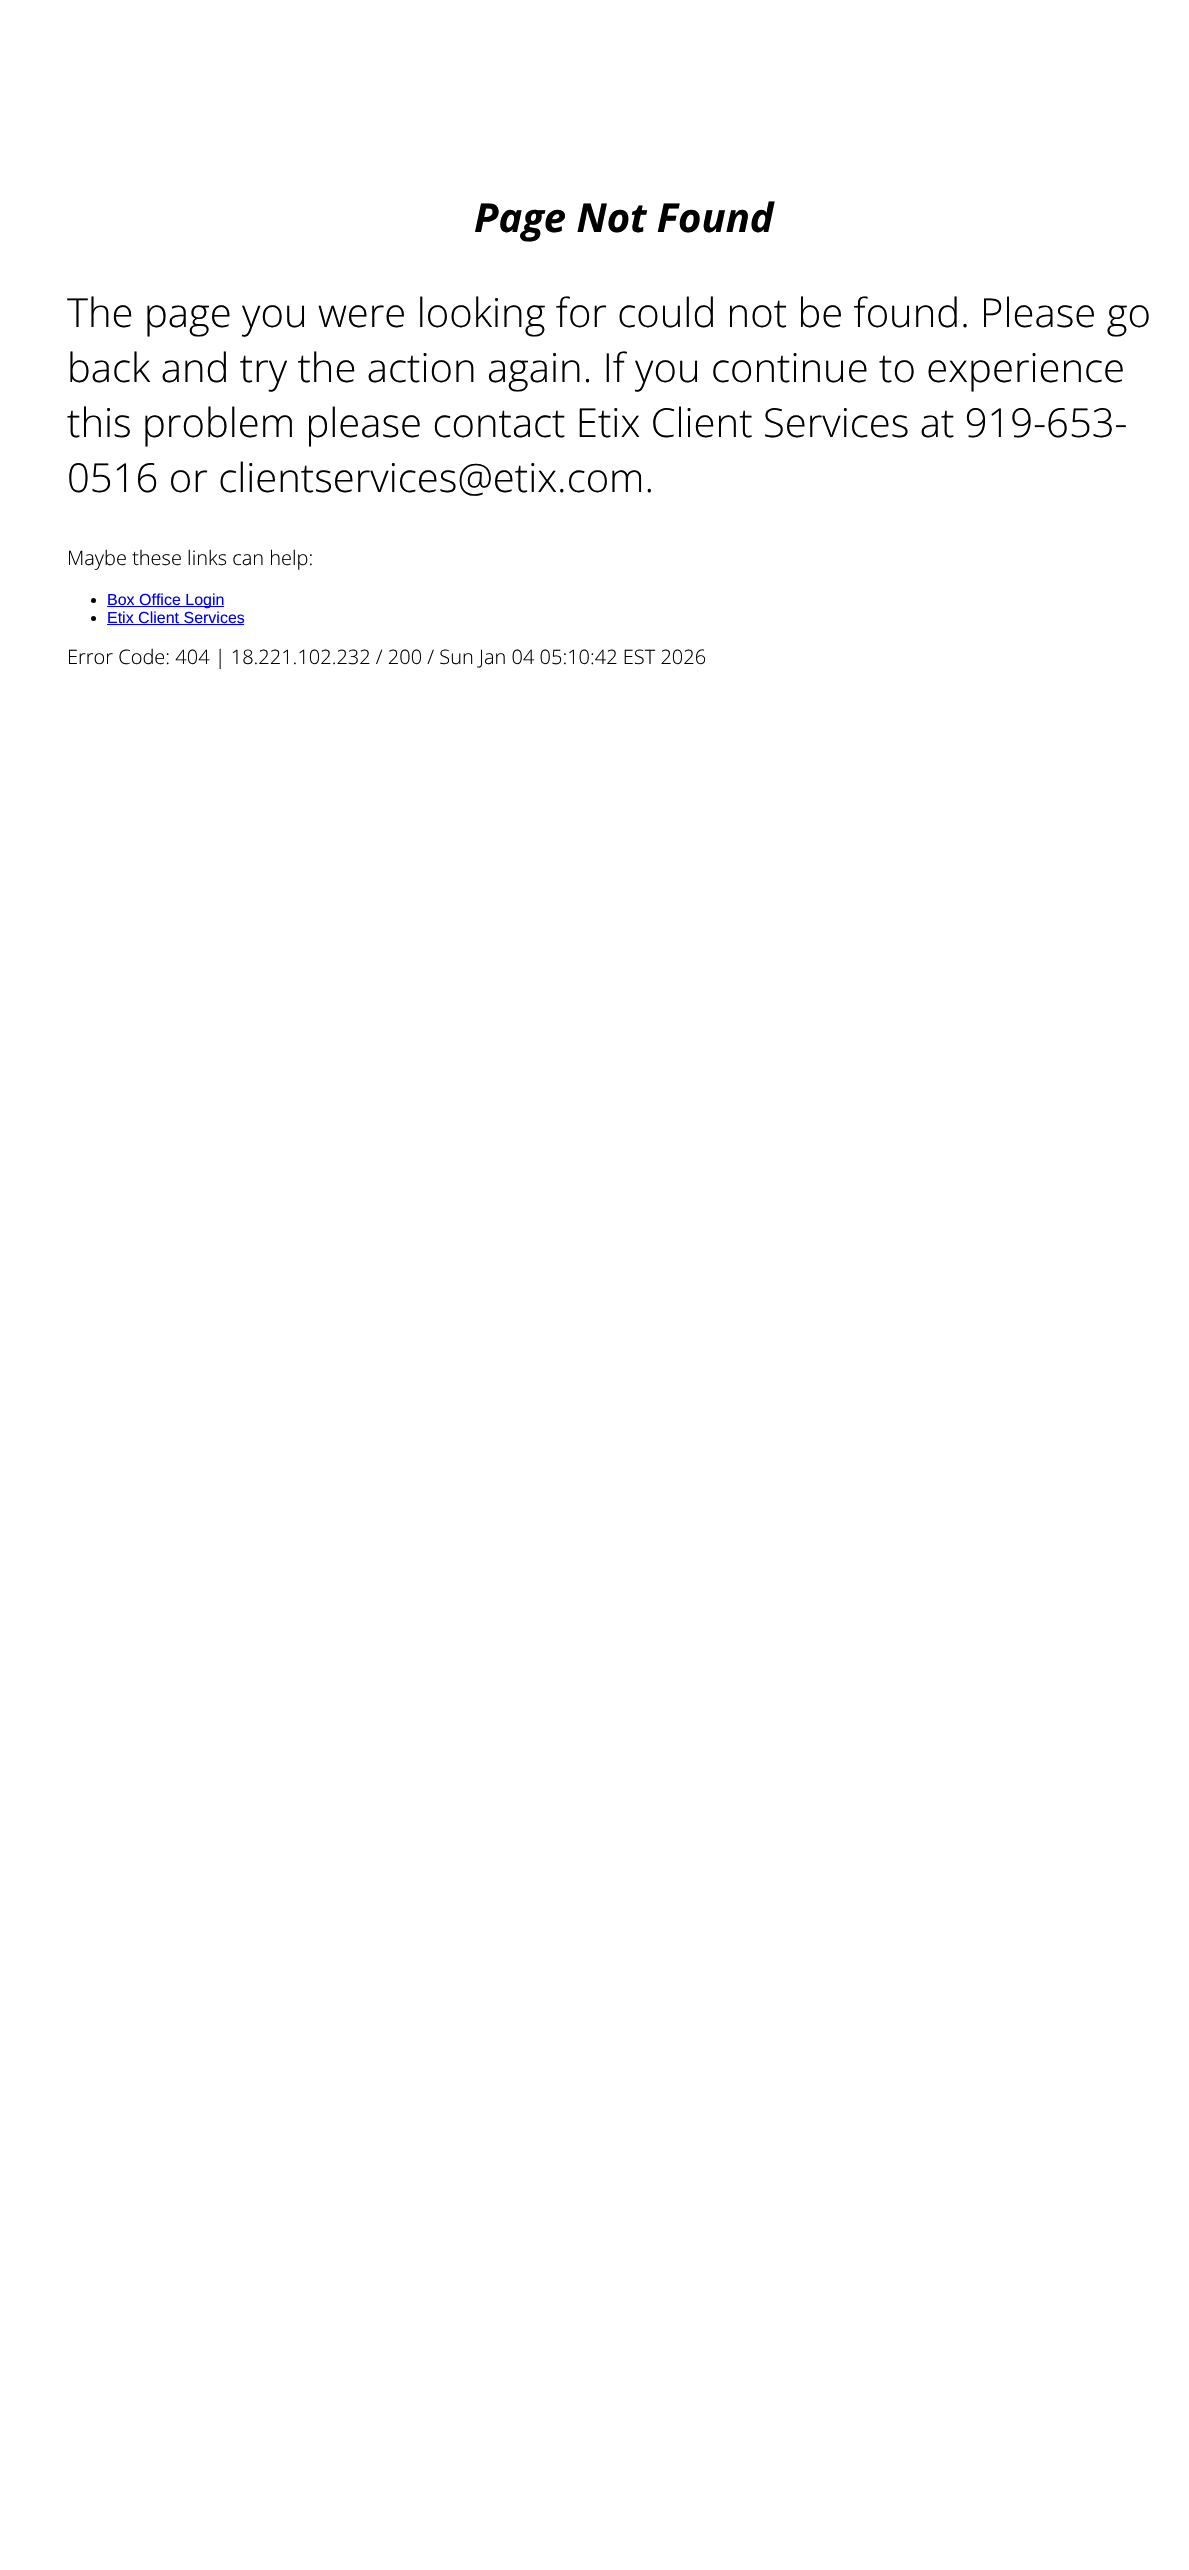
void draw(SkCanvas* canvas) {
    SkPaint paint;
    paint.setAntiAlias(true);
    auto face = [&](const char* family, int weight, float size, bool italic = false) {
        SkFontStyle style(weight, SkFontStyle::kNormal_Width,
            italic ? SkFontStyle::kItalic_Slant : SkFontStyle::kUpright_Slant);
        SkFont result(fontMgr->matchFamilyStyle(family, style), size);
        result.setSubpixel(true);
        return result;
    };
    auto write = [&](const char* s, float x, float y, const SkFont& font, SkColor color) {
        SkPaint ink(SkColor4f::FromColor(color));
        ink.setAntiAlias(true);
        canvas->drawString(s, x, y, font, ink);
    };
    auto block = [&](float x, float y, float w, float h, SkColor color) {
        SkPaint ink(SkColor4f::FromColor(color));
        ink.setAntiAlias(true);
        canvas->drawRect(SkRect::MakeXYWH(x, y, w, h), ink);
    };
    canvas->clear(SK_ColorWHITE);
    auto kFont1 = face("Open Sans", 700, 40, true);
    write("Page Not Found", 474, 232, kFont1, SK_ColorBLACK);
    auto kFont2 = face("Open Sans", 300, 40);
    write("The page you were looking for could not be found. Please go", 67, 327, kFont2, SK_ColorBLACK);
    write("back and try the action again. If you continue to experience", 67, 382, kFont2, SK_ColorBLACK);
    write("this problem please contact Etix Client Services at 919-653-", 67, 437, kFont2, SK_ColorBLACK);
    write("0516 or clientservices@etix.com.", 67, 492, kFont2, SK_ColorBLACK);
    auto kFont3 = face("Open Sans", 300, 20);
    write("Maybe these links can help:", 67, 565, kFont3, SK_ColorBLACK);
    paint.setColor(SK_ColorBLACK);
    canvas->drawCircle(93.5f, 600.5f, 2.5f, paint);
    block(107, 606, 117, 1, SkColorSetRGB(0, 0, 238));
    auto kFont4 = face("Liberation Sans", 400, 16);
    write("Box Office Login", 107, 605, kFont4, SkColorSetRGB(0, 0, 238));
    canvas->drawCircle(93.5f, 618.5f, 2.5f, paint);
    write("Etix Client Services", 107, 623, kFont4, SkColorSetRGB(0, 0, 238));
    block(107, 624, 137, 1, SkColorSetRGB(0, 0, 238));
    write("Error Code: 404 | 18.221.102.232 / 200 / Sun Jan 04 05:10:42 EST 2026", 67, 664, kFont3, SK_ColorBLACK);
}
